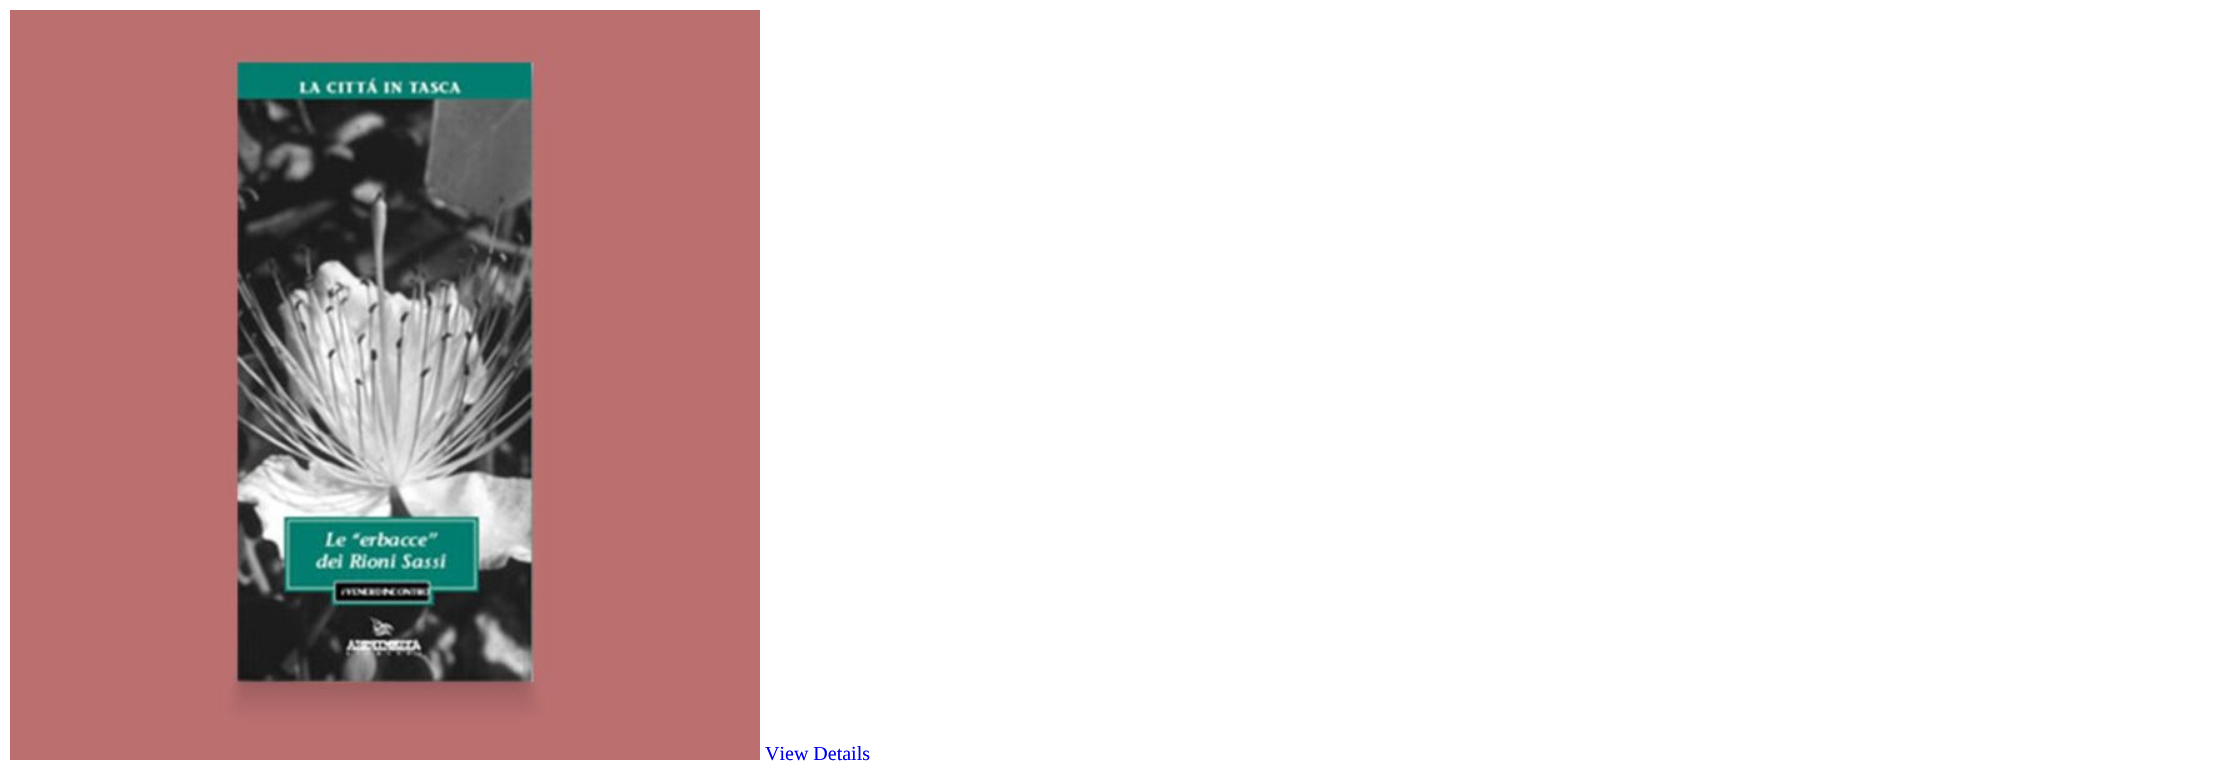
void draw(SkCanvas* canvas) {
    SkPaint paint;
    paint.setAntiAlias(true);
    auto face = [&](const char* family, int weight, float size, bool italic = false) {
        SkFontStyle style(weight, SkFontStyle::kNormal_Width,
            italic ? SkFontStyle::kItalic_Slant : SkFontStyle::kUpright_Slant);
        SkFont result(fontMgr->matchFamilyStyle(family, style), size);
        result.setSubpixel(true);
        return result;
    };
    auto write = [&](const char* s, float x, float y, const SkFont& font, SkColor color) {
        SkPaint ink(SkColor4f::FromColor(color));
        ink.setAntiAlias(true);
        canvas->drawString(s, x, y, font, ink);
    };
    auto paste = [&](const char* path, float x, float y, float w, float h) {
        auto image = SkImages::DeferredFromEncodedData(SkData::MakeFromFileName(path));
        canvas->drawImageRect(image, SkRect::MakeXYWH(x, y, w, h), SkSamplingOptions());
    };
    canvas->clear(SK_ColorWHITE);
    paste("pic1.png", 10, 10, 750, 750);
    auto kFont1 = face("Liberation Serif", 400, 20);
    write("View Details", 765, 760, kFont1, SkColorSetRGB(0, 0, 238));
}
